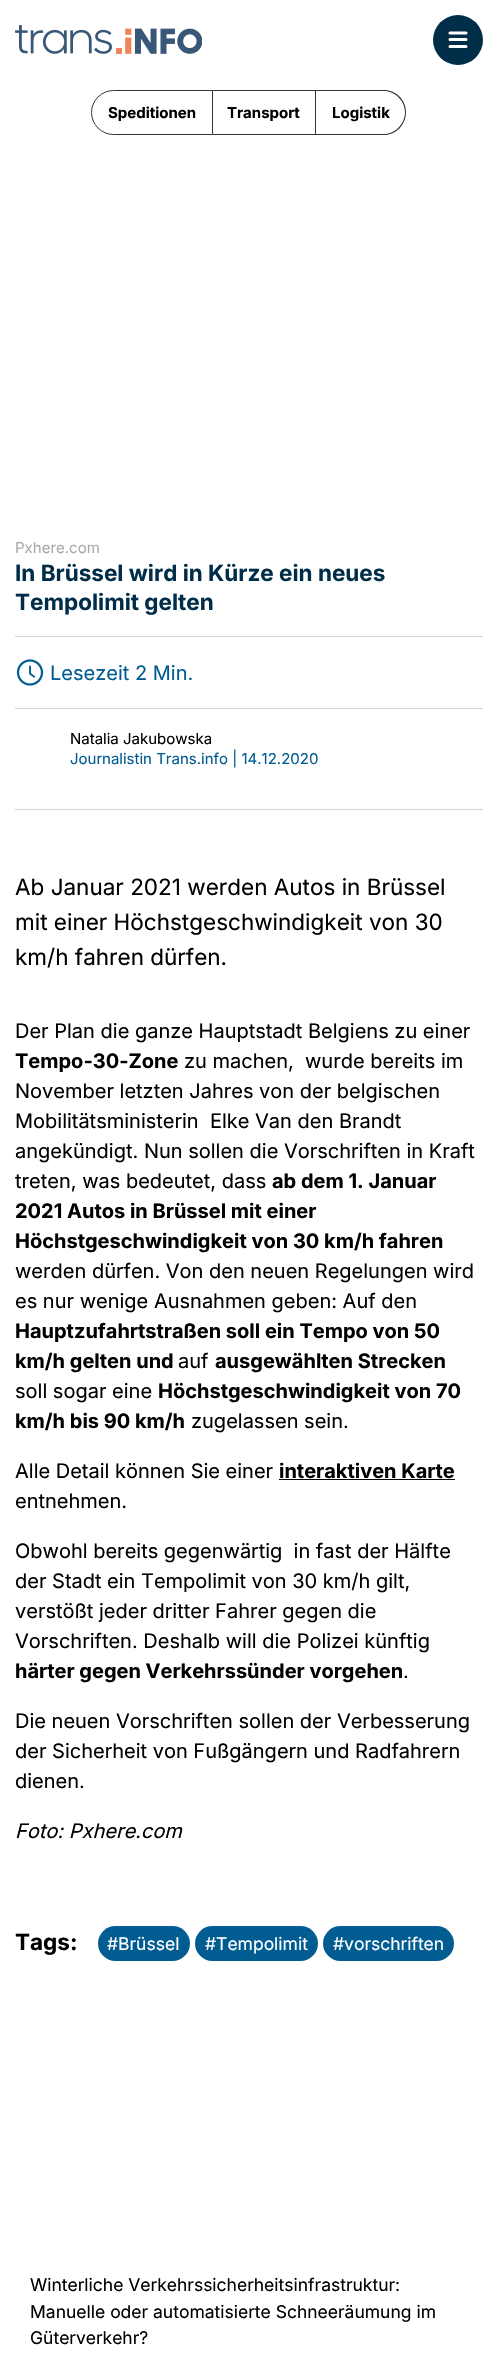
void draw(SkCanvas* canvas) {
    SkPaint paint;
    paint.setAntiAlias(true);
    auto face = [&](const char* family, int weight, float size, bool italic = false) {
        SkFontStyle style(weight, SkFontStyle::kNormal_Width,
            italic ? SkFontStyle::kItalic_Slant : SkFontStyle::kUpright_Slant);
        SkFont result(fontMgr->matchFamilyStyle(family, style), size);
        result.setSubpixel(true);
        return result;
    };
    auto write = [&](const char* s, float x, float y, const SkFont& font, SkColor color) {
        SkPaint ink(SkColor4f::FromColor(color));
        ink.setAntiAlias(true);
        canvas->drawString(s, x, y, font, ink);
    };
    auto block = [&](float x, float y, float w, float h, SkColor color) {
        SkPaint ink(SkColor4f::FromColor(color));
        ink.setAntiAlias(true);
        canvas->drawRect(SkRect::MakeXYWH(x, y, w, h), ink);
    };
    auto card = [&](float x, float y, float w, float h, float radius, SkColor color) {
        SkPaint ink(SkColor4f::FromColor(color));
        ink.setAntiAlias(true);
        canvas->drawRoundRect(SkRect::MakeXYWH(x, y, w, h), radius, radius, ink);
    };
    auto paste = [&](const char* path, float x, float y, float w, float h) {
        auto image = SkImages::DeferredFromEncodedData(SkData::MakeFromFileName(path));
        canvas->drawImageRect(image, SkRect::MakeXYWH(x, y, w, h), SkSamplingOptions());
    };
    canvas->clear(SK_ColorWHITE);
    paste("pic1.png", 15, 25, 187, 29);
    paint.setColor(SkColorSetRGB(0, 45, 72));
    canvas->drawCircle(458, 40, 25, paint);
    paint.setStyle(SkPaint::kStroke_Style);
    paint.setStrokeWidth(3);
    paint.setStrokeCap(SkPaint::kRound_Cap);
    paint.setColor(SK_ColorWHITE);
    canvas->drawPath(SkPathBuilder().moveTo(450, 33).lineTo(466, 33).moveTo(450, 39.5f).lineTo(466, 39.5f).moveTo(450, 46.5f).lineTo(466, 46.5f).detach(), paint);
    paint.setStrokeWidth(1);
    paint.setStrokeCap(SkPaint::kButt_Cap);
    paint.setColor(SkColorSetRGB(51, 51, 51));
    canvas->drawPath(SkPathBuilder().moveTo(113.5f, 90.5f).lineTo(212.5f, 90.5f).lineTo(212.5f, 134.5f).lineTo(113.5f, 134.5f).cubicTo(101.5f, 134.5f, 91.5f, 124.5f, 91.5f, 112.5f).cubicTo(91.5f, 100.5f, 101.5f, 90.5f, 113.5f, 90.5f).close().detach(), paint);
    auto kFont1 = face("Inter", 700, 15);
    write("Speditionen", 108, 118, kFont1, SK_ColorBLACK);
    block(213, 90, 103, 1, SkColorSetRGB(51, 51, 51));
    block(315, 90, 1, 45, SkColorSetRGB(51, 51, 51));
    block(213, 134, 103, 1, SkColorSetRGB(51, 51, 51));
    write("Transport", 227, 118, kFont1, SK_ColorBLACK);
    paint.setStyle(SkPaint::kFill_Style);
    canvas->drawPath(SkPathBuilder(SkPathFillType::kEvenOdd).moveTo(316, 90).lineTo(384, 90).cubicTo(396, 90, 406, 100, 406, 112).cubicTo(406, 125, 396, 135, 384, 135).lineTo(316, 135).close().moveTo(316, 91).lineTo(384, 91).cubicTo(395, 91, 405, 101, 405, 112).cubicTo(405, 124, 395, 134, 384, 134).lineTo(316, 134).close().detach(), paint);
    write("Logistik", 332, 118, kFont1, SK_ColorBLACK);
    auto kFont2 = face("Inter", 400, 15);
    write("Pxhere.com", 15, 553, kFont2, SkColorSetRGB(170, 170, 170));
    auto kFont3 = face("Inter", 700, 22.5f);
    write("In Brüssel wird in Kürze ein neues", 15, 581, kFont3, SkColorSetRGB(0, 45, 72));
    write("Tempolimit gelten", 15, 610, kFont3, SkColorSetRGB(0, 45, 72));
    block(15, 636, 468, 1, SkColorSetRGB(211, 211, 211));
    block(15, 708, 468, 1, SkColorSetRGB(211, 211, 211));
    paste("pic2.png", 16, 659, 28, 27);
    auto kFont4 = face("Inter", 400, 20);
    write("Lesezeit 2 Min.", 50, 680, kFont4, SkColorSetRGB(1, 92, 146));
    write("Natalia Jakubowska", 70, 744, kFont2, SK_ColorBLACK);
    write("Journalistin Trans.info | 14.12.2020", 70, 764, kFont2, SkColorSetRGB(1, 92, 146));
    block(15, 809, 468, 1, SkColorSetRGB(211, 211, 211));
    auto kFont5 = face("Inter", 400, 22.5f);
    write("Ab Januar 2021 werden Autos in Brüssel", 15, 895, kFont5, SK_ColorBLACK);
    write("mit einer Höchstgeschwindigkeit von 30", 15, 930, kFont5, SK_ColorBLACK);
    write("km/h fahren dürfen.", 15, 965, kFont5, SK_ColorBLACK);
    write("Der Plan die ganze Hauptstadt Belgiens zu einer", 15, 1038, kFont4, SK_ColorBLACK);
    auto kFont6 = face("Inter", 700, 20);
    write("Tempo-30-Zone", 15, 1068, kFont6, SK_ColorBLACK);
    write("zu machen,  wurde bereits im", 184, 1068, kFont4, SK_ColorBLACK);
    write("November letzten Jahres von der belgischen", 15, 1098, kFont4, SK_ColorBLACK);
    write("Mobilitätsministerin  Elke Van den Brandt", 15, 1128, kFont4, SK_ColorBLACK);
    write("angekündigt. Nun sollen die Vorschriften in Kraft", 15, 1158, kFont4, SK_ColorBLACK);
    write("treten, was bedeutet, dass", 15, 1188, kFont4, SK_ColorBLACK);
    write("ab dem 1. Januar", 272, 1188, kFont6, SK_ColorBLACK);
    write("2021 Autos in Brüssel mit einer", 15, 1218, kFont6, SK_ColorBLACK);
    write("Höchstgeschwindigkeit von 30 km/h fahren", 15, 1248, kFont6, SK_ColorBLACK);
    write("werden dürfen. Von den neuen Regelungen wird", 15, 1278, kFont4, SK_ColorBLACK);
    write("es nur wenige Ausnahmen geben: Auf den", 15, 1308, kFont4, SK_ColorBLACK);
    write("Hauptzufahrtstraßen soll ein Tempo von 50", 15, 1338, kFont6, SK_ColorBLACK);
    write("km/h gelten und", 15, 1368, kFont6, SK_ColorBLACK);
    write("auf", 178, 1368, kFont4, SK_ColorBLACK);
    write("ausgewählten Strecken", 215, 1368, kFont6, SK_ColorBLACK);
    write("soll sogar eine", 15, 1398, kFont4, SK_ColorBLACK);
    write("Höchstgeschwindigkeit von 70", 158, 1398, kFont6, SK_ColorBLACK);
    write("km/h bis 90 km/h", 15, 1428, kFont6, SK_ColorBLACK);
    write("zugelassen sein.", 191, 1428, kFont4, SK_ColorBLACK);
    write("Alle Detail können Sie einer", 15, 1478, kFont4, SK_ColorBLACK);
    write("interaktiven Karte", 279, 1478, kFont6, SK_ColorBLACK);
    block(279, 1479, 176, 1, SK_ColorBLACK);
    write("entnehmen.", 15, 1508, kFont4, SK_ColorBLACK);
    write("Obwohl bereits gegenwärtig  in fast der Hälfte", 15, 1558, kFont4, SK_ColorBLACK);
    write("der Stadt ein Tempolimit von 30 km/h gilt,", 15, 1588, kFont4, SK_ColorBLACK);
    write("verstößt jeder dritter Fahrer gegen die", 15, 1618, kFont4, SK_ColorBLACK);
    write("Vorschriften. Deshalb will die Polizei künftig", 15, 1648, kFont4, SK_ColorBLACK);
    write("härter gegen Verkehrssünder vorgehen", 15, 1678, kFont6, SK_ColorBLACK);
    write(".", 403, 1678, kFont4, SK_ColorBLACK);
    write("Die neuen Vorschriften sollen der Verbesserung", 15, 1728, kFont4, SK_ColorBLACK);
    write("der Sicherheit von Fußgängern und Radfahrern", 15, 1758, kFont4, SK_ColorBLACK);
    write("dienen.", 15, 1788, kFont4, SK_ColorBLACK);
    auto kFont7 = face("Inter", 400, 20, true);
    write("Foto: Pxhere.com", 15, 1838, kFont7, SK_ColorBLACK);
    write("Tags:", 15, 1950, kFont3, SK_ColorBLACK);
    card(98, 1926, 92, 35, 17.5f, SkColorSetRGB(1, 92, 146));
    auto kFont8 = face("Inter", 400, 17.5f);
    write("#Brüssel", 107, 1950, kFont8, SK_ColorWHITE);
    card(195, 1926, 123, 35, 17.5f, SkColorSetRGB(1, 92, 146));
    write("#Tempolimit", 205, 1950, kFont8, SK_ColorWHITE);
    card(323, 1926, 131, 35, 17.5f, SkColorSetRGB(1, 92, 146));
    write("#vorschriften", 333, 1950, kFont8, SK_ColorWHITE);
    write("Winterliche Verkehrssicherheitsinfrastruktur:", 30, 2291, kFont8, SK_ColorBLACK);
    write("Manuelle oder automatisierte Schneeräumung im", 30, 2318, kFont8, SK_ColorBLACK);
    write("Güterverkehr?", 30, 2344, kFont8, SK_ColorBLACK);
}
